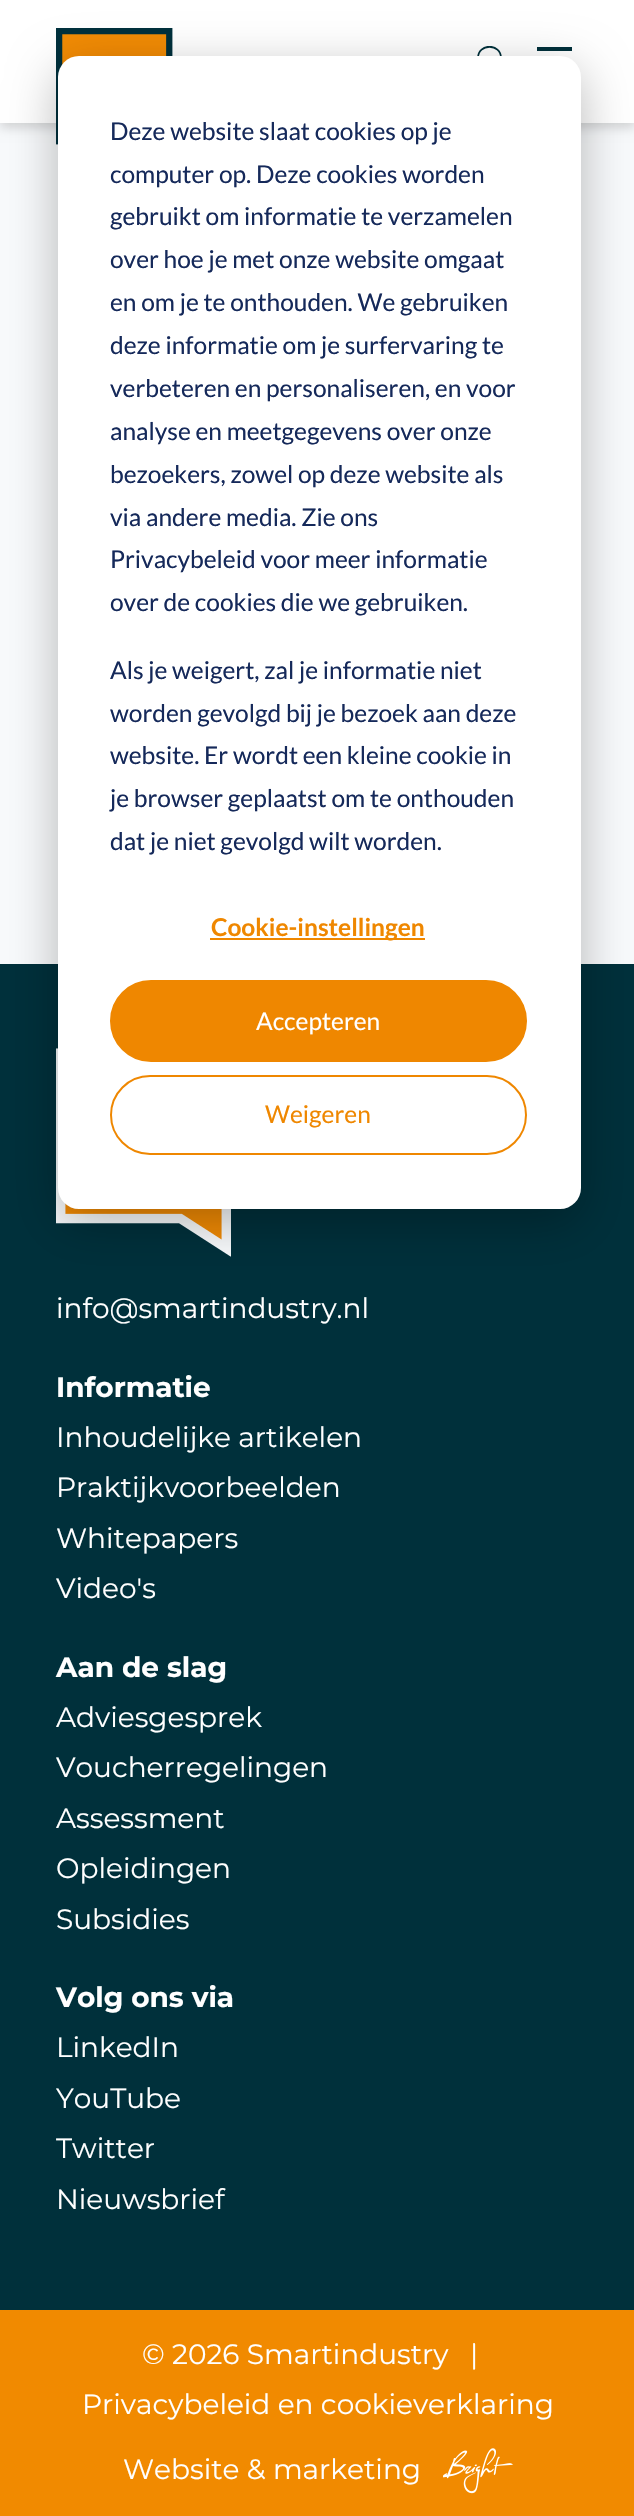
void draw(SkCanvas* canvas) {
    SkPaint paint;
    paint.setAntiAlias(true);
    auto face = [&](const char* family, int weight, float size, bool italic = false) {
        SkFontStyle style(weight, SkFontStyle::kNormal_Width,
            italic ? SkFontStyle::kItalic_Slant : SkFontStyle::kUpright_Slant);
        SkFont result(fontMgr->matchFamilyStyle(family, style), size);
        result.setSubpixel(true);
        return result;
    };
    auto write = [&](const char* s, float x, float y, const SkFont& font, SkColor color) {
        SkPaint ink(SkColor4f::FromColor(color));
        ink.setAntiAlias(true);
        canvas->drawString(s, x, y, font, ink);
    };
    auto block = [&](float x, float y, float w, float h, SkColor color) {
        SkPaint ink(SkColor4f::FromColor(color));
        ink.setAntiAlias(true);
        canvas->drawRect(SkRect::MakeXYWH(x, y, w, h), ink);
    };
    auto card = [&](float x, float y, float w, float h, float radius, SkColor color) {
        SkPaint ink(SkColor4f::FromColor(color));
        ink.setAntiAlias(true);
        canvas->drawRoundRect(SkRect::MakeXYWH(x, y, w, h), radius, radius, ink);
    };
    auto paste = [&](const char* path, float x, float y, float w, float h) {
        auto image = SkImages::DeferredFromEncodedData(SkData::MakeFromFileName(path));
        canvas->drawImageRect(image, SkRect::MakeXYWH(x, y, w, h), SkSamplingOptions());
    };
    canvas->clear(SkColorSetRGB(248, 250, 252));
    paint.setColor(SkColorSetARGB(38, 0, 0, 0));
    paint.setMaskFilter(SkMaskFilter::MakeBlur(kNormal_SkBlurStyle, 5));
    canvas->drawRect(SkRect::MakeXYWH(0, 5, 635, 123), paint);
    paint.setMaskFilter(nullptr);
    block(0, 0, 634, 123, SK_ColorWHITE);
    paste("pic1.png", 56, 28, 117, 117);
    canvas->save();
    canvas->clipRect(SkRect::MakeXYWH(476, 46, 33, 31));
    paint.setStyle(SkPaint::kStroke_Style);
    paint.setStrokeWidth(1.8f);
    paint.setStrokeCap(SkPaint::kRound_Cap);
    paint.setStrokeJoin(SkPaint::kRound_Join);
    paint.setColor(SkColorSetRGB(0, 48, 59));
    canvas->drawPath(SkPathBuilder().moveTo(507.5f, 76).lineTo(497.5f, 66).moveTo(501, 58).cubicTo(501, 73, 477.5f, 73, 478, 58).cubicTo(478, 43, 501, 43, 501, 58).close().detach(), paint);
    canvas->restore();
    block(537, 47, 35, 4, SkColorSetRGB(0, 48, 59));
    block(0, 964, 634, 1346, SkColorSetRGB(0, 48, 59));
    paste("pic2.png", 56, 1048, 175, 209);
    paint.setStyle(SkPaint::kFill_Style);
    paint.setColor(SkColorSetARGB(71, 0, 0, 0));
    paint.setMaskFilter(SkMaskFilter::MakeBlur(kNormal_SkBlurStyle, 24.5f));
    canvas->drawRoundRect(SkRect::MakeXYWH(58, 70, 523, 1153), 21, 21, paint);
    paint.setMaskFilter(nullptr);
    card(58, 56, 523, 1153, 21, SK_ColorWHITE);
    auto kFont1 = face("Lato", 400, 24.5f);
    write("Deze website slaat cookies op je", 110, 140, kFont1, SkColorSetRGB(21, 41, 90));
    write("computer op. Deze cookies worden", 110, 183, kFont1, SkColorSetRGB(21, 41, 90));
    write("gebruikt om informatie te verzamelen", 110, 225, kFont1, SkColorSetRGB(21, 41, 90));
    write("over hoe je met onze website omgaat", 110, 268, kFont1, SkColorSetRGB(21, 41, 90));
    write("en om je te onthouden. We gebruiken", 110, 311, kFont1, SkColorSetRGB(21, 41, 90));
    write("deze informatie om je surfervaring te", 110, 354, kFont1, SkColorSetRGB(21, 41, 90));
    write("verbeteren en personaliseren, en voor", 110, 397, kFont1, SkColorSetRGB(21, 41, 90));
    write("analyse en meetgegevens over onze", 110, 440, kFont1, SkColorSetRGB(21, 41, 90));
    write("bezoekers, zowel op deze website als", 110, 483, kFont1, SkColorSetRGB(21, 41, 90));
    write("via andere media. Zie ons", 110, 526, kFont1, SkColorSetRGB(21, 41, 90));
    write("Privacybeleid voor meer informatie", 110, 568, kFont1, SkColorSetRGB(21, 41, 90));
    write("over de cookies die we gebruiken.", 110, 611, kFont1, SkColorSetRGB(21, 41, 90));
    write("Als je weigert, zal je informatie niet", 110, 679, kFont1, SkColorSetRGB(21, 41, 90));
    write("worden gevolgd bij je bezoek aan deze", 110, 722, kFont1, SkColorSetRGB(21, 41, 90));
    write("website. Er wordt een kleine cookie in", 110, 764, kFont1, SkColorSetRGB(21, 41, 90));
    write("je browser geplaatst om te onthouden", 110, 807, kFont1, SkColorSetRGB(21, 41, 90));
    write("dat je niet gevolgd wilt worden.", 110, 850, kFont1, SkColorSetRGB(21, 41, 90));
    block(210, 938, 215, 2, SkColorSetRGB(239, 135, 0));
    auto kFont2 = face("Lato", 700, 24.5f);
    write("Cookie-instellingen", 211, 936, kFont2, SkColorSetRGB(239, 135, 0));
    paint.setColor(SkColorSetRGB(239, 135, 0));
    canvas->drawRoundRect(SkRect::MakeXYWH(111, 981, 415, 80), 40, 40, paint);
    paint.setStyle(SkPaint::kStroke_Style);
    paint.setStrokeWidth(2);
    paint.setStrokeCap(SkPaint::kButt_Cap);
    paint.setStrokeJoin(SkPaint::kMiter_Join);
    canvas->drawRoundRect(SkRect::MakeXYWH(111, 981, 415, 80), 40, 40, paint);
    write("Accepteren", 256, 1030, kFont1, SK_ColorWHITE);
    canvas->drawRoundRect(SkRect::MakeXYWH(111, 1076, 415, 78), 39, 39, paint);
    write("Weigeren", 265, 1123, kFont1, SkColorSetRGB(239, 135, 0));
    auto kFont3 = face("Montserrat", 400, 28);
    write("info@smartindustry.nl", 56, 1318, kFont3, SK_ColorWHITE);
    auto kFont4 = face("Montserrat", 700, 28);
    write("Informatie", 56, 1397, kFont4, SK_ColorWHITE);
    write("Inhoudelijke artikelen", 56, 1447, kFont3, SK_ColorWHITE);
    write("Praktijkvoorbeelden", 56, 1497, kFont3, SK_ColorWHITE);
    write("Whitepapers", 56, 1548, kFont3, SK_ColorWHITE);
    write("Video's", 56, 1598, kFont3, SK_ColorWHITE);
    write("Aan de slag", 56, 1677, kFont4, SK_ColorWHITE);
    write("Adviesgesprek", 56, 1727, kFont3, SK_ColorWHITE);
    write("Voucherregelingen", 56, 1777, kFont3, SK_ColorWHITE);
    write("Assessment", 56, 1828, kFont3, SK_ColorWHITE);
    write("Opleidingen", 56, 1878, kFont3, SK_ColorWHITE);
    write("Subsidies", 56, 1929, kFont3, SK_ColorWHITE);
    write("Volg ons via", 56, 2007, kFont4, SK_ColorWHITE);
    write("LinkedIn", 56, 2057, kFont3, SK_ColorWHITE);
    write("YouTube", 56, 2108, kFont3, SK_ColorWHITE);
    write("Twitter", 56, 2158, kFont3, SK_ColorWHITE);
    write("Nieuwsbrief", 56, 2209, kFont3, SK_ColorWHITE);
    block(0, 2310, 634, 206, SkColorSetRGB(241, 138, 0));
    write("|", 470, 2364, kFont3, SK_ColorWHITE);
    write("Privacybeleid en cookieverklaring", 82, 2414, kFont3, SK_ColorWHITE);
    write("© 2026 Smartindustry", 142, 2364, kFont3, SK_ColorWHITE);
    write("Website & marketing", 123, 2479, kFont3, SK_ColorWHITE);
    paste("pic3.png", 443, 2448, 70, 46);
}
